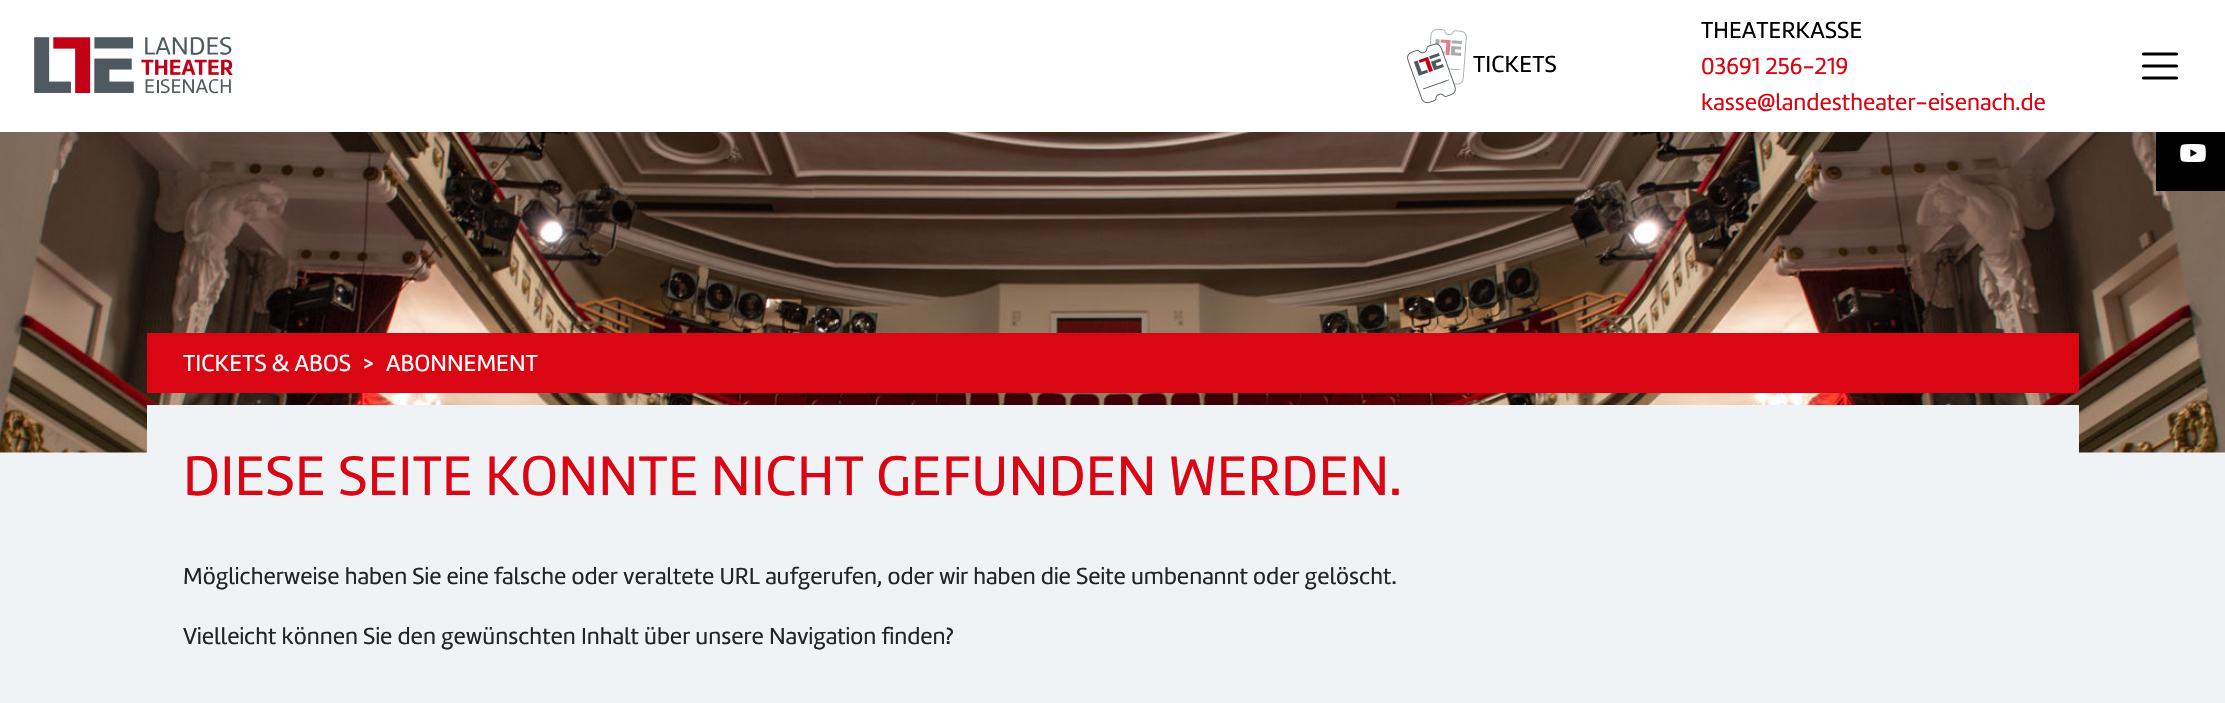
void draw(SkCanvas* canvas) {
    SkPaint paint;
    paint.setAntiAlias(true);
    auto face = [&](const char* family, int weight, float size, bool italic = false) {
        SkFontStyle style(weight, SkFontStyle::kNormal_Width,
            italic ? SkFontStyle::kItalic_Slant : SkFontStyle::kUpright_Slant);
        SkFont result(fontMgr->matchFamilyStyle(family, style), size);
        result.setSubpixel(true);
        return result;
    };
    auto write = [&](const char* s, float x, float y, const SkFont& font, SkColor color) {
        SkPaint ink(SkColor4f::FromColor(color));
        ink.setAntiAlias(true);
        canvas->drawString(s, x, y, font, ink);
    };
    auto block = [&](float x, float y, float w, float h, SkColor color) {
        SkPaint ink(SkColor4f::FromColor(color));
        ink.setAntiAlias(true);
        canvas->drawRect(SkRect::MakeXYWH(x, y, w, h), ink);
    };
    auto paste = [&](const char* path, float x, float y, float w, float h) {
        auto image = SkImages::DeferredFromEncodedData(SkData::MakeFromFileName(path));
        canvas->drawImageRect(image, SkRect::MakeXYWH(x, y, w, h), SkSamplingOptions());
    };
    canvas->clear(SkColorSetRGB(239, 243, 246));
    block(0, 0, 2225, 132, SK_ColorWHITE);
    paste("pic1.png", 34, 37, 199, 57);
    paste("pic2.png", 1407, 29, 60, 75);
    auto kFont1 = face("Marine", 400, 24);
    write("TICKETS", 1473, 72, kFont1, SK_ColorBLACK);
    write("THEATERKASSE", 1701, 38, kFont1, SK_ColorBLACK);
    write("03691 256-219", 1701, 74, kFont1, SkColorSetRGB(219, 6, 20));
    write("kasse@landestheater-eisenach.de", 1701, 110, kFont1, SkColorSetRGB(219, 6, 20));
    paint.setStyle(SkPaint::kStroke_Style);
    paint.setStrokeWidth(3);
    paint.setStrokeCap(SkPaint::kRound_Cap);
    paint.setColor(SK_ColorBLACK);
    canvas->drawPath(SkPathBuilder().moveTo(2143.5f, 54).lineTo(2176.5f, 54).moveTo(2143.5f, 66).lineTo(2176.5f, 66).moveTo(2143.5f, 78).lineTo(2176.5f, 78).detach(), paint);
    paste("pic4.png", 0, 132, 2225, 321);
    block(2156, 132, 69, 59, SK_ColorBLACK);
    paste("pic3.png", 2180, 144, 26, 18);
    block(147, 333, 1932, 60, SkColorSetRGB(219, 6, 20));
    write("TICKETS & ABOS", 183, 371, kFont1, SK_ColorWHITE);
    write(">", 363, 371, kFont1, SK_ColorWHITE);
    write("ABONNEMENT", 386, 371, kFont1, SK_ColorWHITE);
    block(147, 405, 1932, 48, SkColorSetRGB(239, 243, 246));
    auto kFont2 = face("Marine", 400, 57.6f);
    write("DIESE SEITE KONNTE NICHT GEFUNDEN WERDEN.", 183, 495, kFont2, SkColorSetRGB(219, 6, 20));
    write("Möglicherweise haben Sie eine falsche oder veraltete URL aufgerufen, oder wir haben die Seite umbenannt oder gelöscht.", 183, 584, kFont1, SkColorSetRGB(33, 37, 41));
    write("Vielleicht können Sie den gewünschten Inhalt über unsere Navigation finden?", 183, 644, kFont1, SkColorSetRGB(33, 37, 41));
}
